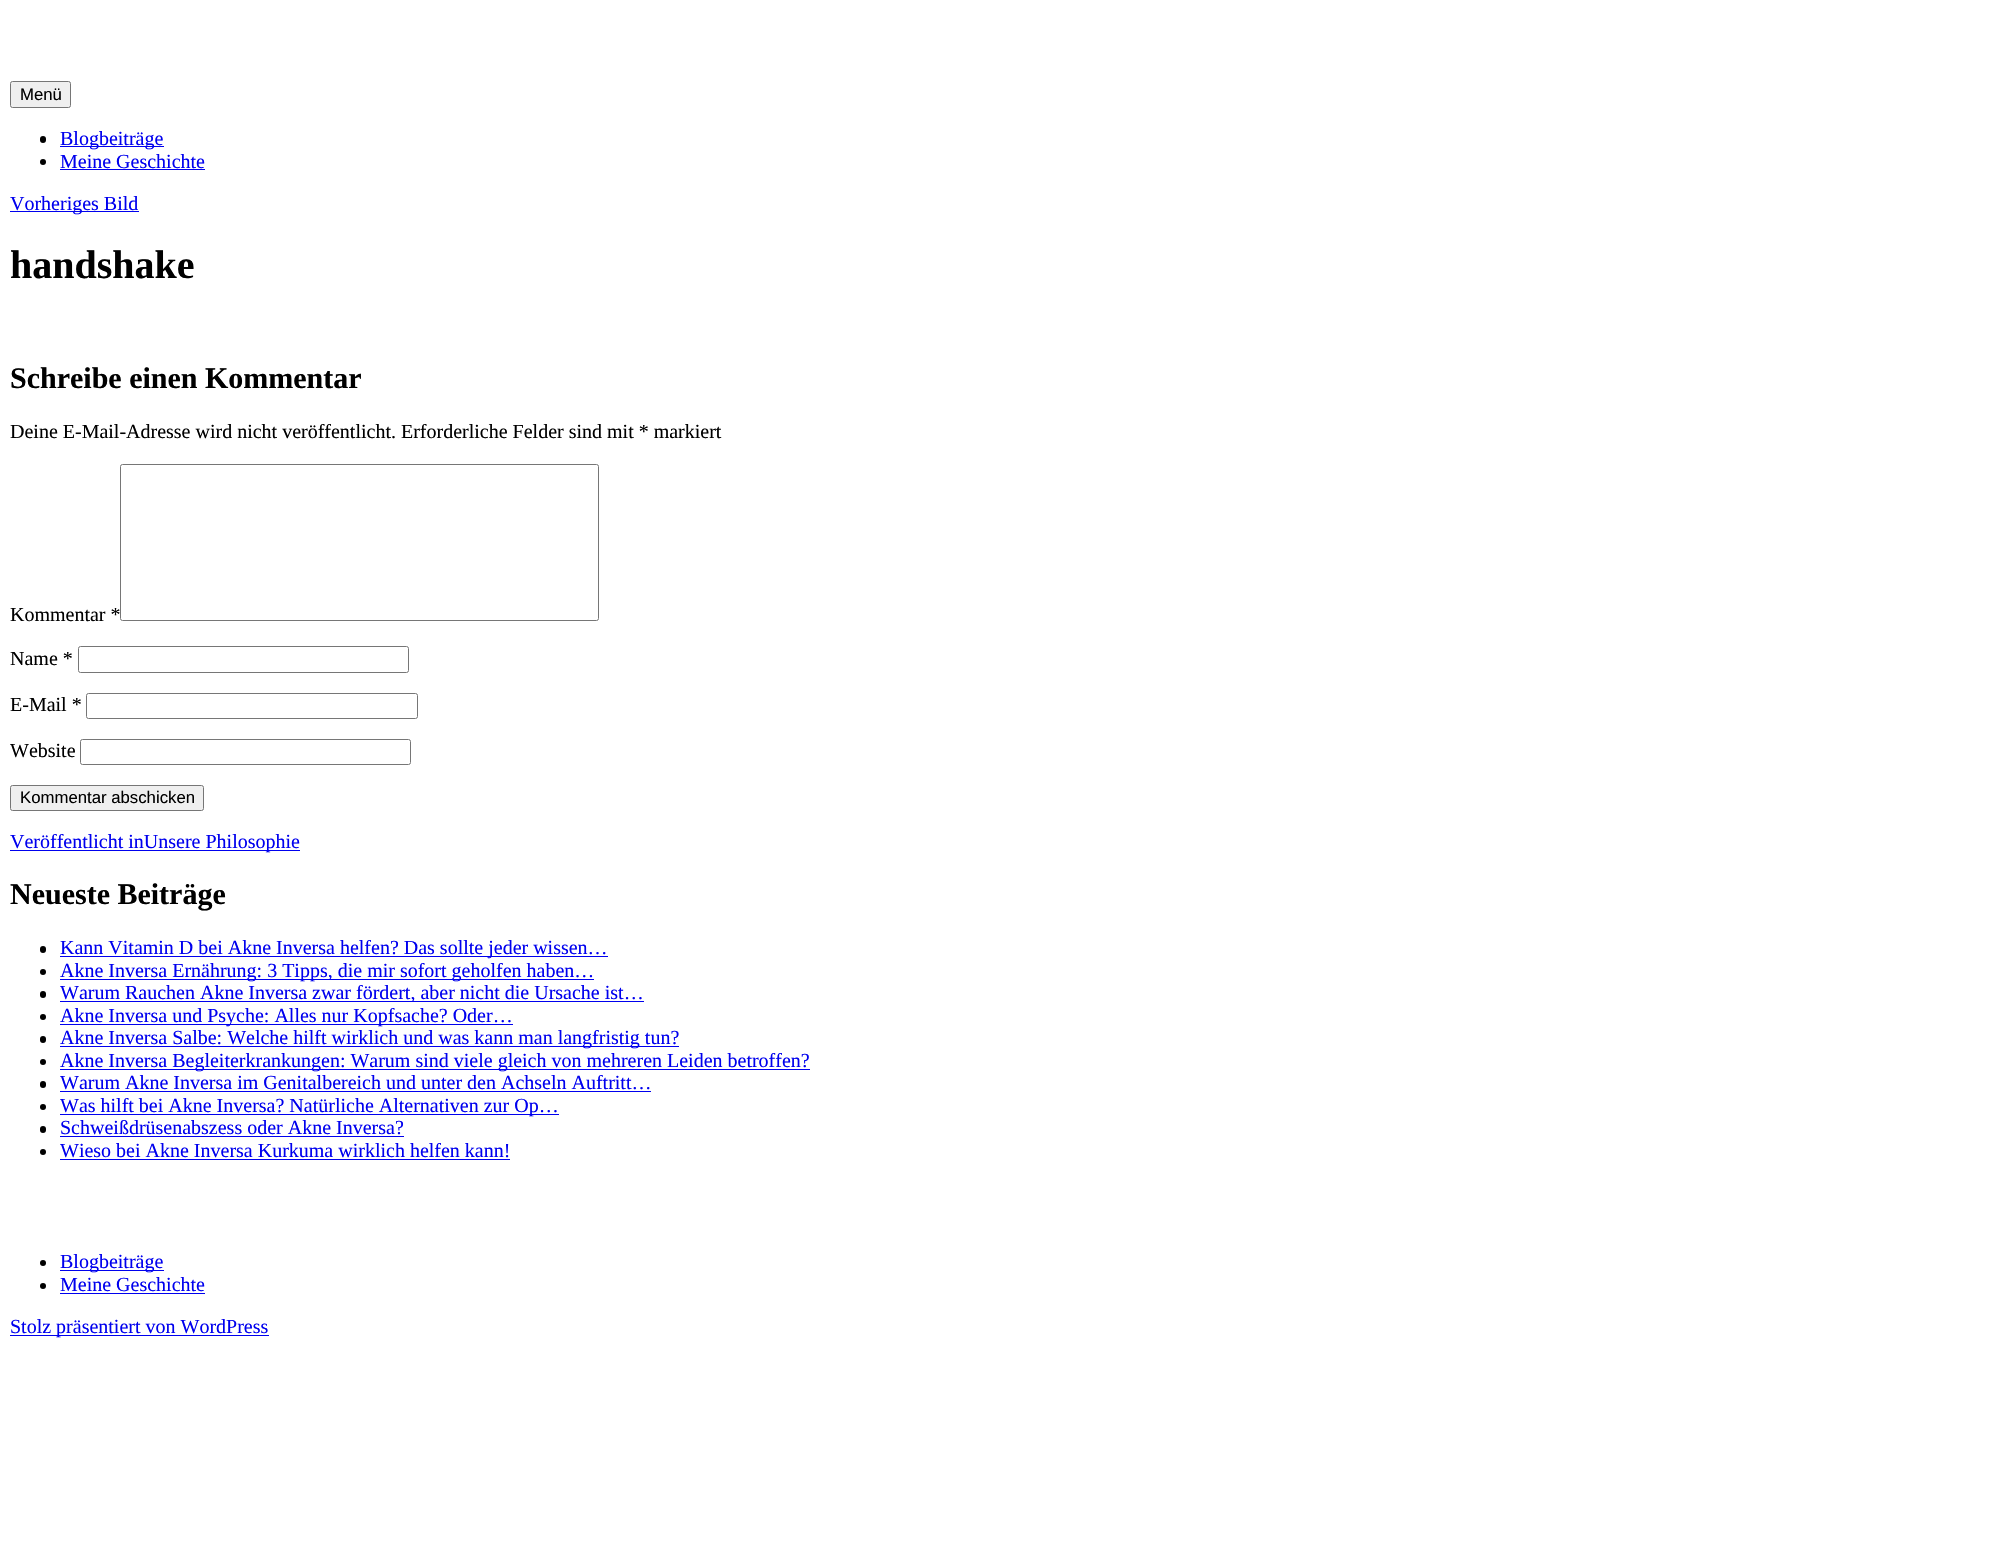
void draw(SkCanvas* canvas) {
    SkPaint paint;
    paint.setAntiAlias(true);
    auto face = [&](const char* family, int weight, float size, bool italic = false) {
        SkFontStyle style(weight, SkFontStyle::kNormal_Width,
            italic ? SkFontStyle::kItalic_Slant : SkFontStyle::kUpright_Slant);
        SkFont result(fontMgr->matchFamilyStyle(family, style), size);
        result.setSubpixel(true);
        return result;
    };
    auto write = [&](const char* s, float x, float y, const SkFont& font, SkColor color) {
        SkPaint ink(SkColor4f::FromColor(color));
        ink.setAntiAlias(true);
        canvas->drawString(s, x, y, font, ink);
    };
    auto block = [&](float x, float y, float w, float h, SkColor color) {
        SkPaint ink(SkColor4f::FromColor(color));
        ink.setAntiAlias(true);
        canvas->drawRect(SkRect::MakeXYWH(x, y, w, h), ink);
    };
    auto card = [&](float x, float y, float w, float h, float radius, SkColor color) {
        SkPaint ink(SkColor4f::FromColor(color));
        ink.setAntiAlias(true);
        canvas->drawRoundRect(SkRect::MakeXYWH(x, y, w, h), radius, radius, ink);
    };
    canvas->clear(SK_ColorWHITE);
    paint.setColor(SkColorSetRGB(239, 239, 239));
    canvas->drawRoundRect(SkRect::MakeXYWH(10.5f, 81.5f, 60, 26), 2, 2, paint);
    paint.setStyle(SkPaint::kStroke_Style);
    paint.setStrokeWidth(1);
    paint.setColor(SkColorSetRGB(118, 118, 118));
    canvas->drawRoundRect(SkRect::MakeXYWH(10.5f, 81.5f, 60, 26), 2, 2, paint);
    auto kFont1 = face("Liberation Sans", 400, 16.75f);
    write("Menü", 20, 100, kFont1, SK_ColorBLACK);
    card(40, 136, 6, 7, 3, SK_ColorBLACK);
    block(60, 146, 104, 1, SkColorSetRGB(0, 0, 238));
    auto kFont2 = face("Liberation Serif", 400, 20);
    write("Blogbeiträge", 60, 145, kFont2, SkColorSetRGB(0, 0, 238));
    paint.setStyle(SkPaint::kFill_Style);
    paint.setColor(SK_ColorBLACK);
    canvas->drawCircle(43, 162, 3, paint);
    write("Meine Geschichte", 60, 168, kFont2, SkColorSetRGB(0, 0, 238));
    block(60, 169, 145, 1, SkColorSetRGB(0, 0, 238));
    block(10, 211, 129, 1, SkColorSetRGB(0, 0, 238));
    write("Vorheriges Bild", 10, 210, kFont2, SkColorSetRGB(0, 0, 238));
    auto kFont3 = face("Liberation Serif", 700, 40);
    write("handshake", 10, 278, kFont3, SK_ColorBLACK);
    auto kFont4 = face("Liberation Serif", 700, 30);
    write("Schreibe einen Kommentar", 10, 388, kFont4, SK_ColorBLACK);
    write("Deine E-Mail-Adresse wird nicht veröffentlicht. Erforderliche Felder sind mit * markiert", 10, 438, kFont2, SK_ColorBLACK);
    write("Kommentar *", 10, 621, kFont2, SK_ColorBLACK);
    paint.setStyle(SkPaint::kStroke_Style);
    paint.setColor(SkColorSetRGB(118, 118, 118));
    canvas->drawRoundRect(SkRect::MakeXYWH(120.5f, 464.5f, 478, 156), 2, 2, paint);
    write("Name *", 10, 665, kFont2, SK_ColorBLACK);
    canvas->drawRoundRect(SkRect::MakeXYWH(78.5f, 646.5f, 330, 26), 2, 2, paint);
    write("E-Mail *", 10, 711, kFont2, SK_ColorBLACK);
    canvas->drawRoundRect(SkRect::MakeXYWH(86.5f, 693.5f, 331, 25), 2, 2, paint);
    write("Website", 10, 757, kFont2, SK_ColorBLACK);
    canvas->drawRoundRect(SkRect::MakeXYWH(80.5f, 739.5f, 330, 25), 2, 2, paint);
    paint.setStyle(SkPaint::kFill_Style);
    paint.setColor(SkColorSetRGB(239, 239, 239));
    canvas->drawRoundRect(SkRect::MakeXYWH(10.5f, 785.5f, 193, 25), 2, 2, paint);
    paint.setStyle(SkPaint::kStroke_Style);
    paint.setColor(SkColorSetRGB(118, 118, 118));
    canvas->drawRoundRect(SkRect::MakeXYWH(10.5f, 785.5f, 193, 25), 2, 2, paint);
    write("Kommentar abschicken", 20, 803, kFont1, SK_ColorBLACK);
    block(10, 850, 290, 1, SkColorSetRGB(0, 0, 238));
    write("Veröffentlicht inUnsere Philosophie", 10, 848, kFont2, SkColorSetRGB(0, 0, 238));
    write("Neueste Beiträge", 10, 904, kFont4, SK_ColorBLACK);
    card(40, 946, 6, 7, 3, SK_ColorBLACK);
    block(60, 956, 548, 1, SkColorSetRGB(0, 0, 238));
    write("Kann Vitamin D bei Akne Inversa helfen? Das sollte jeder wissen…", 60, 954, kFont2, SkColorSetRGB(0, 0, 238));
    paint.setStyle(SkPaint::kFill_Style);
    paint.setColor(SK_ColorBLACK);
    canvas->drawCircle(43, 972, 3, paint);
    block(60, 979, 534, 1, SkColorSetRGB(0, 0, 238));
    write("Akne Inversa Ernährung: 3 Tipps, die mir sofort geholfen haben…", 60, 977, kFont2, SkColorSetRGB(0, 0, 238));
    card(40, 991, 6, 7, 3, SK_ColorBLACK);
    block(60, 1001, 584, 1, SkColorSetRGB(0, 0, 238));
    write("Warum Rauchen Akne Inversa zwar fördert, aber nicht die Ursache ist…", 60, 999, kFont2, SkColorSetRGB(0, 0, 238));
    canvas->drawCircle(43, 1017, 3, paint);
    block(60, 1024, 453, 1, SkColorSetRGB(0, 0, 238));
    write("Akne Inversa und Psyche: Alles nur Kopfsache? Oder…", 60, 1022, kFont2, SkColorSetRGB(0, 0, 238));
    card(40, 1036, 6, 7, 3, SK_ColorBLACK);
    block(60, 1046, 619, 1, SkColorSetRGB(0, 0, 238));
    write("Akne Inversa Salbe: Welche hilft wirklich und was kann man langfristig tun?", 60, 1044, kFont2, SkColorSetRGB(0, 0, 238));
    canvas->drawCircle(43, 1062, 3, paint);
    block(60, 1069, 750, 1, SkColorSetRGB(0, 0, 238));
    write("Akne Inversa Begleiterkrankungen: Warum sind viele gleich von mehreren Leiden betroffen?", 60, 1067, kFont2, SkColorSetRGB(0, 0, 238));
    card(40, 1081, 6, 7, 3, SK_ColorBLACK);
    write("Warum Akne Inversa im Genitalbereich und unter den Achseln Auftritt…", 60, 1089, kFont2, SkColorSetRGB(0, 0, 238));
    block(60, 1091, 591, 1, SkColorSetRGB(0, 0, 238));
    canvas->drawCircle(43, 1107, 3, paint);
    block(60, 1114, 499, 1, SkColorSetRGB(0, 0, 238));
    write("Was hilft bei Akne Inversa? Natürliche Alternativen zur Op…", 60, 1112, kFont2, SkColorSetRGB(0, 0, 238));
    card(40, 1126, 6, 7, 3, SK_ColorBLACK);
    write("Schweißdrüsenabszess oder Akne Inversa?", 60, 1134, kFont2, SkColorSetRGB(0, 0, 238));
    block(60, 1136, 344, 1, SkColorSetRGB(0, 0, 238));
    canvas->drawCircle(43, 1152, 3, paint);
    write("Wieso bei Akne Inversa Kurkuma wirklich helfen kann!", 60, 1157, kFont2, SkColorSetRGB(0, 0, 238));
    block(60, 1159, 450, 1, SkColorSetRGB(0, 0, 238));
    canvas->drawCircle(43, 1263, 3, paint);
    block(60, 1270, 104, 1, SkColorSetRGB(0, 0, 238));
    write("Blogbeiträge", 60, 1268, kFont2, SkColorSetRGB(0, 0, 238));
    canvas->drawCircle(43, 1286, 3, paint);
    write("Meine Geschichte", 60, 1291, kFont2, SkColorSetRGB(0, 0, 238));
    block(60, 1293, 145, 1, SkColorSetRGB(0, 0, 238));
    block(10, 1335, 259, 1, SkColorSetRGB(0, 0, 238));
    write("Stolz präsentiert von WordPress", 10, 1333, kFont2, SkColorSetRGB(0, 0, 238));
}
